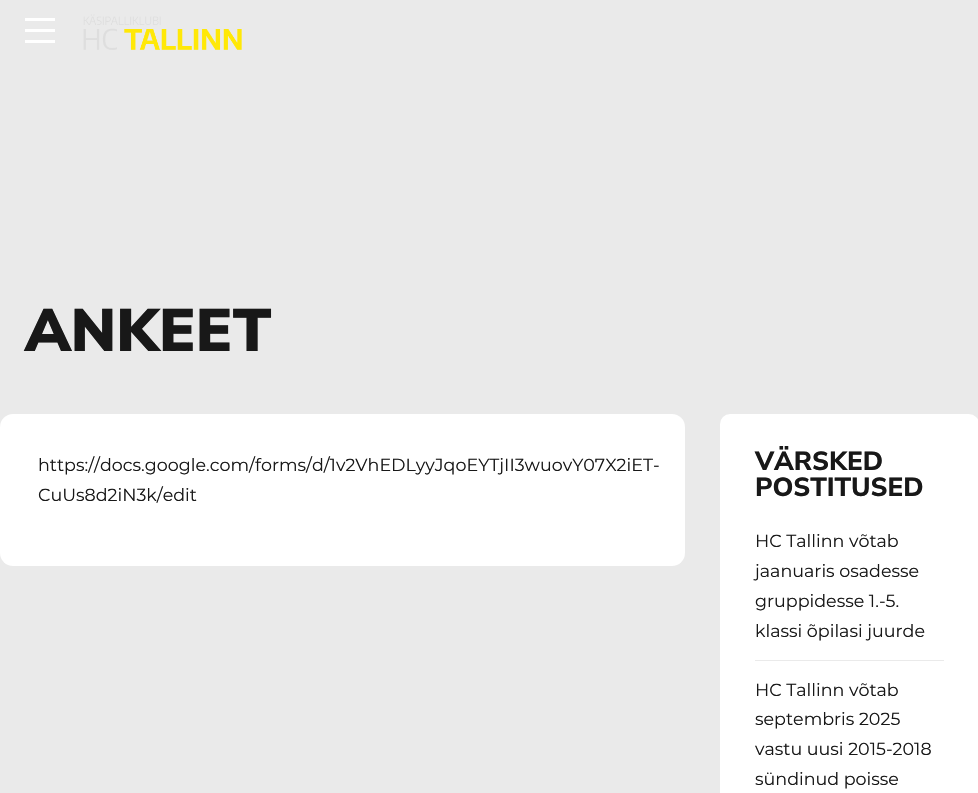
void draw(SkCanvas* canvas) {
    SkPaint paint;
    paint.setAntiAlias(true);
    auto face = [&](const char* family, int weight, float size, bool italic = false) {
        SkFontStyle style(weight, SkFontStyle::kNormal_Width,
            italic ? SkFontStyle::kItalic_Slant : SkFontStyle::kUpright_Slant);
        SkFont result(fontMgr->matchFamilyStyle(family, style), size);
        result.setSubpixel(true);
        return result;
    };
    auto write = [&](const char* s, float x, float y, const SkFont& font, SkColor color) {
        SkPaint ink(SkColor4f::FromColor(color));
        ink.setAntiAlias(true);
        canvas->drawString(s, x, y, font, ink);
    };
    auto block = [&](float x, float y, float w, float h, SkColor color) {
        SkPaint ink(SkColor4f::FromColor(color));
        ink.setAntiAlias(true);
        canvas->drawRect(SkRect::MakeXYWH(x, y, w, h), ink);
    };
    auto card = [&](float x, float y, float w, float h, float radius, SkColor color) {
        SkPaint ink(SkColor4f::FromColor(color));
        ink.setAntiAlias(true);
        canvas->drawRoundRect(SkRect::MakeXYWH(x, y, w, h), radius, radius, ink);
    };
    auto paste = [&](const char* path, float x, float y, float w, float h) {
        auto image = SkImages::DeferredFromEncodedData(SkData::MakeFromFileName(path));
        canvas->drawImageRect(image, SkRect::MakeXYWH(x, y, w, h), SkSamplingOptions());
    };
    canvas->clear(SkColorSetRGB(234, 234, 234));
    block(25, 18, 30, 3, SK_ColorWHITE);
    block(25, 29, 30, 3, SK_ColorWHITE);
    block(25, 40, 30, 3, SK_ColorWHITE);
    paste("pic1.png", 83, 14, 159, 36);
    auto kFont1 = face("Nunito Sans", 900, 60);
    write("ANKEET", 25, 351, kFont1, SkColorSetRGB(24, 24, 24));
    card(0, 414, 685, 152, 13, SK_ColorWHITE);
    auto kFont2 = face("Montserrat", 400, 17.5f);
    write("https://docs.google.com/forms/d/1v2VhEDLyyJqoEYTjII3wuovY07X2iET-", 38, 471, kFont2, SkColorSetRGB(24, 24, 24));
    write("CuUs8d2iN3k/edit", 38, 501, kFont2, SkColorSetRGB(24, 24, 24));
    card(720, 414, 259, 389, 10, SK_ColorWHITE);
    auto kFont3 = face("Nunito Sans", 800, 26.25f);
    write("VÄRSKED", 755, 470, kFont3, SkColorSetRGB(24, 24, 24));
    write("POSTITUSED", 755, 496, kFont3, SkColorSetRGB(24, 24, 24));
    block(755, 660, 189, 1, SkColorSetRGB(234, 234, 234));
    write("HC Tallinn võtab", 755, 547, kFont2, SkColorSetRGB(24, 24, 24));
    write("jaanuaris osadesse", 755, 577, kFont2, SkColorSetRGB(24, 24, 24));
    write("gruppidesse 1.-5.", 755, 607, kFont2, SkColorSetRGB(24, 24, 24));
    write("klassi õpilasi juurde", 755, 637, kFont2, SkColorSetRGB(24, 24, 24));
    write("HC Tallinn võtab", 755, 696, kFont2, SkColorSetRGB(24, 24, 24));
    write("septembris 2025", 755, 725, kFont2, SkColorSetRGB(24, 24, 24));
    write("vastu uusi 2015-2018", 755, 755, kFont2, SkColorSetRGB(24, 24, 24));
    write("sündinud poisse", 755, 785, kFont2, SkColorSetRGB(24, 24, 24));
}
